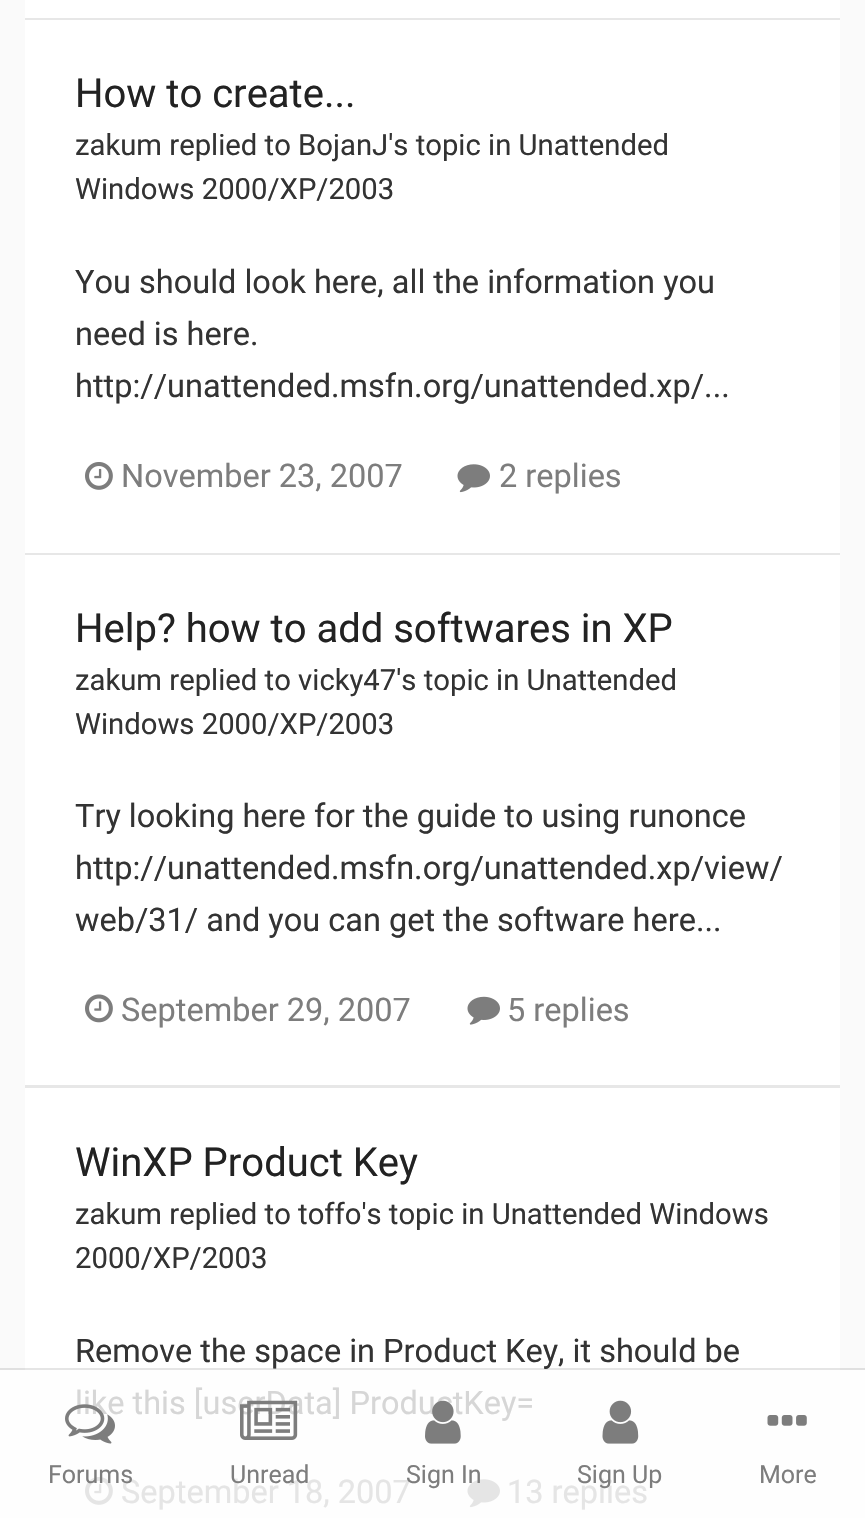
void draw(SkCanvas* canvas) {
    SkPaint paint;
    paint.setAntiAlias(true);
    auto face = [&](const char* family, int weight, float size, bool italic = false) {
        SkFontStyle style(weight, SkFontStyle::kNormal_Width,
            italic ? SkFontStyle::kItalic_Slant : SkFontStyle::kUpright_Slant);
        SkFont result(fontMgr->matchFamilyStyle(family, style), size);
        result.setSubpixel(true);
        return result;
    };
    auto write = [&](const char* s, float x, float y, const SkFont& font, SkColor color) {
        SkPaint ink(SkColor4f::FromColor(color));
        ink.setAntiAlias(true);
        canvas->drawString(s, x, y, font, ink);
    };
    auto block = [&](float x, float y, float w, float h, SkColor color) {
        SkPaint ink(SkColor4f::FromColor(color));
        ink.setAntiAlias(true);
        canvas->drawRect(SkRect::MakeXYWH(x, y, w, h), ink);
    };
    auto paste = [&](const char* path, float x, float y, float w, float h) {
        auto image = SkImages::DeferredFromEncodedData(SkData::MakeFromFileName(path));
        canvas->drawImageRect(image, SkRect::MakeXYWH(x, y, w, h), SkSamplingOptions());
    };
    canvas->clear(SkColorSetRGB(250, 250, 250));
    block(0, 1370, 865, 148, SkColorSetRGB(254, 254, 254));
    block(25, 0, 815, 18, SK_ColorWHITE);
    block(25, 18, 815, 2, SkColorSetRGB(231, 231, 231));
    block(25, 20, 815, 533, SK_ColorWHITE);
    block(25, 553, 815, 2, SkColorSetRGB(231, 231, 231));
    auto kFont1 = face("Roboto", 400, 40);
    write("How to create...", 75, 107, kFont1, SkColorSetRGB(34, 34, 34));
    auto kFont2 = face("Roboto", 400, 29.25f);
    write("zakum replied to BojanJ's topic in Unattended", 75, 155, kFont2, SkColorSetRGB(51, 51, 51));
    write("Windows 2000/XP/2003", 75, 199, kFont2, SkColorSetRGB(51, 51, 51));
    auto kFont3 = face("Roboto", 400, 32.5f);
    write("You should look here, all the information you", 75, 293, kFont3, SkColorSetRGB(51, 51, 51));
    write("need is here.", 75, 345, kFont3, SkColorSetRGB(51, 51, 51));
    write("http://unattended.msfn.org/unattended.xp/...", 75, 397, kFont3, SkColorSetRGB(51, 51, 51));
    paste("pic1.png", 85, 462, 28, 28);
    write("November 23, 2007", 121, 487, kFont3, SkColorSetRGB(125, 125, 125));
    paste("pic2.png", 457, 464, 33, 29);
    write("2 replies", 499, 487, kFont3, SkColorSetRGB(125, 125, 125));
    block(25, 555, 815, 530, SK_ColorWHITE);
    block(25, 1085, 815, 3, SkColorSetRGB(231, 231, 231));
    write("Help? how to add softwares in XP", 75, 642, kFont1, SkColorSetRGB(34, 34, 34));
    write("zakum replied to vicky47's topic in Unattended", 75, 690, kFont2, SkColorSetRGB(51, 51, 51));
    write("Windows 2000/XP/2003", 75, 734, kFont2, SkColorSetRGB(51, 51, 51));
    write("Try looking here for the guide to using runonce", 75, 827, kFont3, SkColorSetRGB(51, 51, 51));
    write("http://unattended.msfn.org/unattended.xp/view/", 75, 879, kFont3, SkColorSetRGB(51, 51, 51));
    write("web/31/ and you can get the software here...", 75, 931, kFont3, SkColorSetRGB(51, 51, 51));
    paste("pic3.png", 85, 994, 28, 29);
    write("September 29, 2007", 121, 1021, kFont3, SkColorSetRGB(125, 125, 125));
    paste("pic4.png", 467, 996, 33, 29);
    write("5 replies", 507, 1021, kFont3, SkColorSetRGB(125, 125, 125));
    block(25, 1088, 815, 282, SK_ColorWHITE);
    write("WinXP Product Key", 75, 1176, kFont1, SkColorSetRGB(34, 34, 34));
    write("zakum replied to toffo's topic in Unattended Windows", 75, 1224, kFont2, SkColorSetRGB(51, 51, 51));
    write("2000/XP/2003", 75, 1268, kFont2, SkColorSetRGB(51, 51, 51));
    write("Remove the space in Product Key, it should be", 75, 1362, kFont3, SkColorSetRGB(51, 51, 51));
    write("like this [userData] ProductKey=", 75, 1414, kFont3, SkColorSetRGB(214, 214, 214));
    paste("pic5.png", 85, 1477, 28, 28);
    write("September 18, 2007", 121, 1503, kFont3, SkColorSetRGB(229, 229, 229));
    paste("pic6.png", 467, 1479, 33, 29);
    write("13 replies", 507, 1503, kFont3, SkColorSetRGB(229, 229, 229));
    block(0, 1368, 865, 2, SkColorSetARGB(26, 0, 0, 0));
    paste("pic7.png", 65, 1404, 50, 40);
    auto kFont4 = face("Roboto", 400, 25);
    write("Forums", 48, 1483, kFont4, SkColorSetRGB(125, 125, 125));
    paste("pic8.png", 240, 1400, 58, 40);
    write("Unread", 230, 1483, kFont4, SkColorSetRGB(125, 125, 125));
    paste("pic9.png", 425, 1400, 36, 44);
    write("Sign In", 406, 1483, kFont4, SkColorSetRGB(125, 125, 125));
    paste("pic10.png", 602, 1400, 37, 44);
    write("Sign Up", 577, 1483, kFont4, SkColorSetRGB(125, 125, 125));
    paste("pic11.png", 767, 1415, 40, 11);
    write("More", 759, 1483, kFont4, SkColorSetRGB(125, 125, 125));
}
